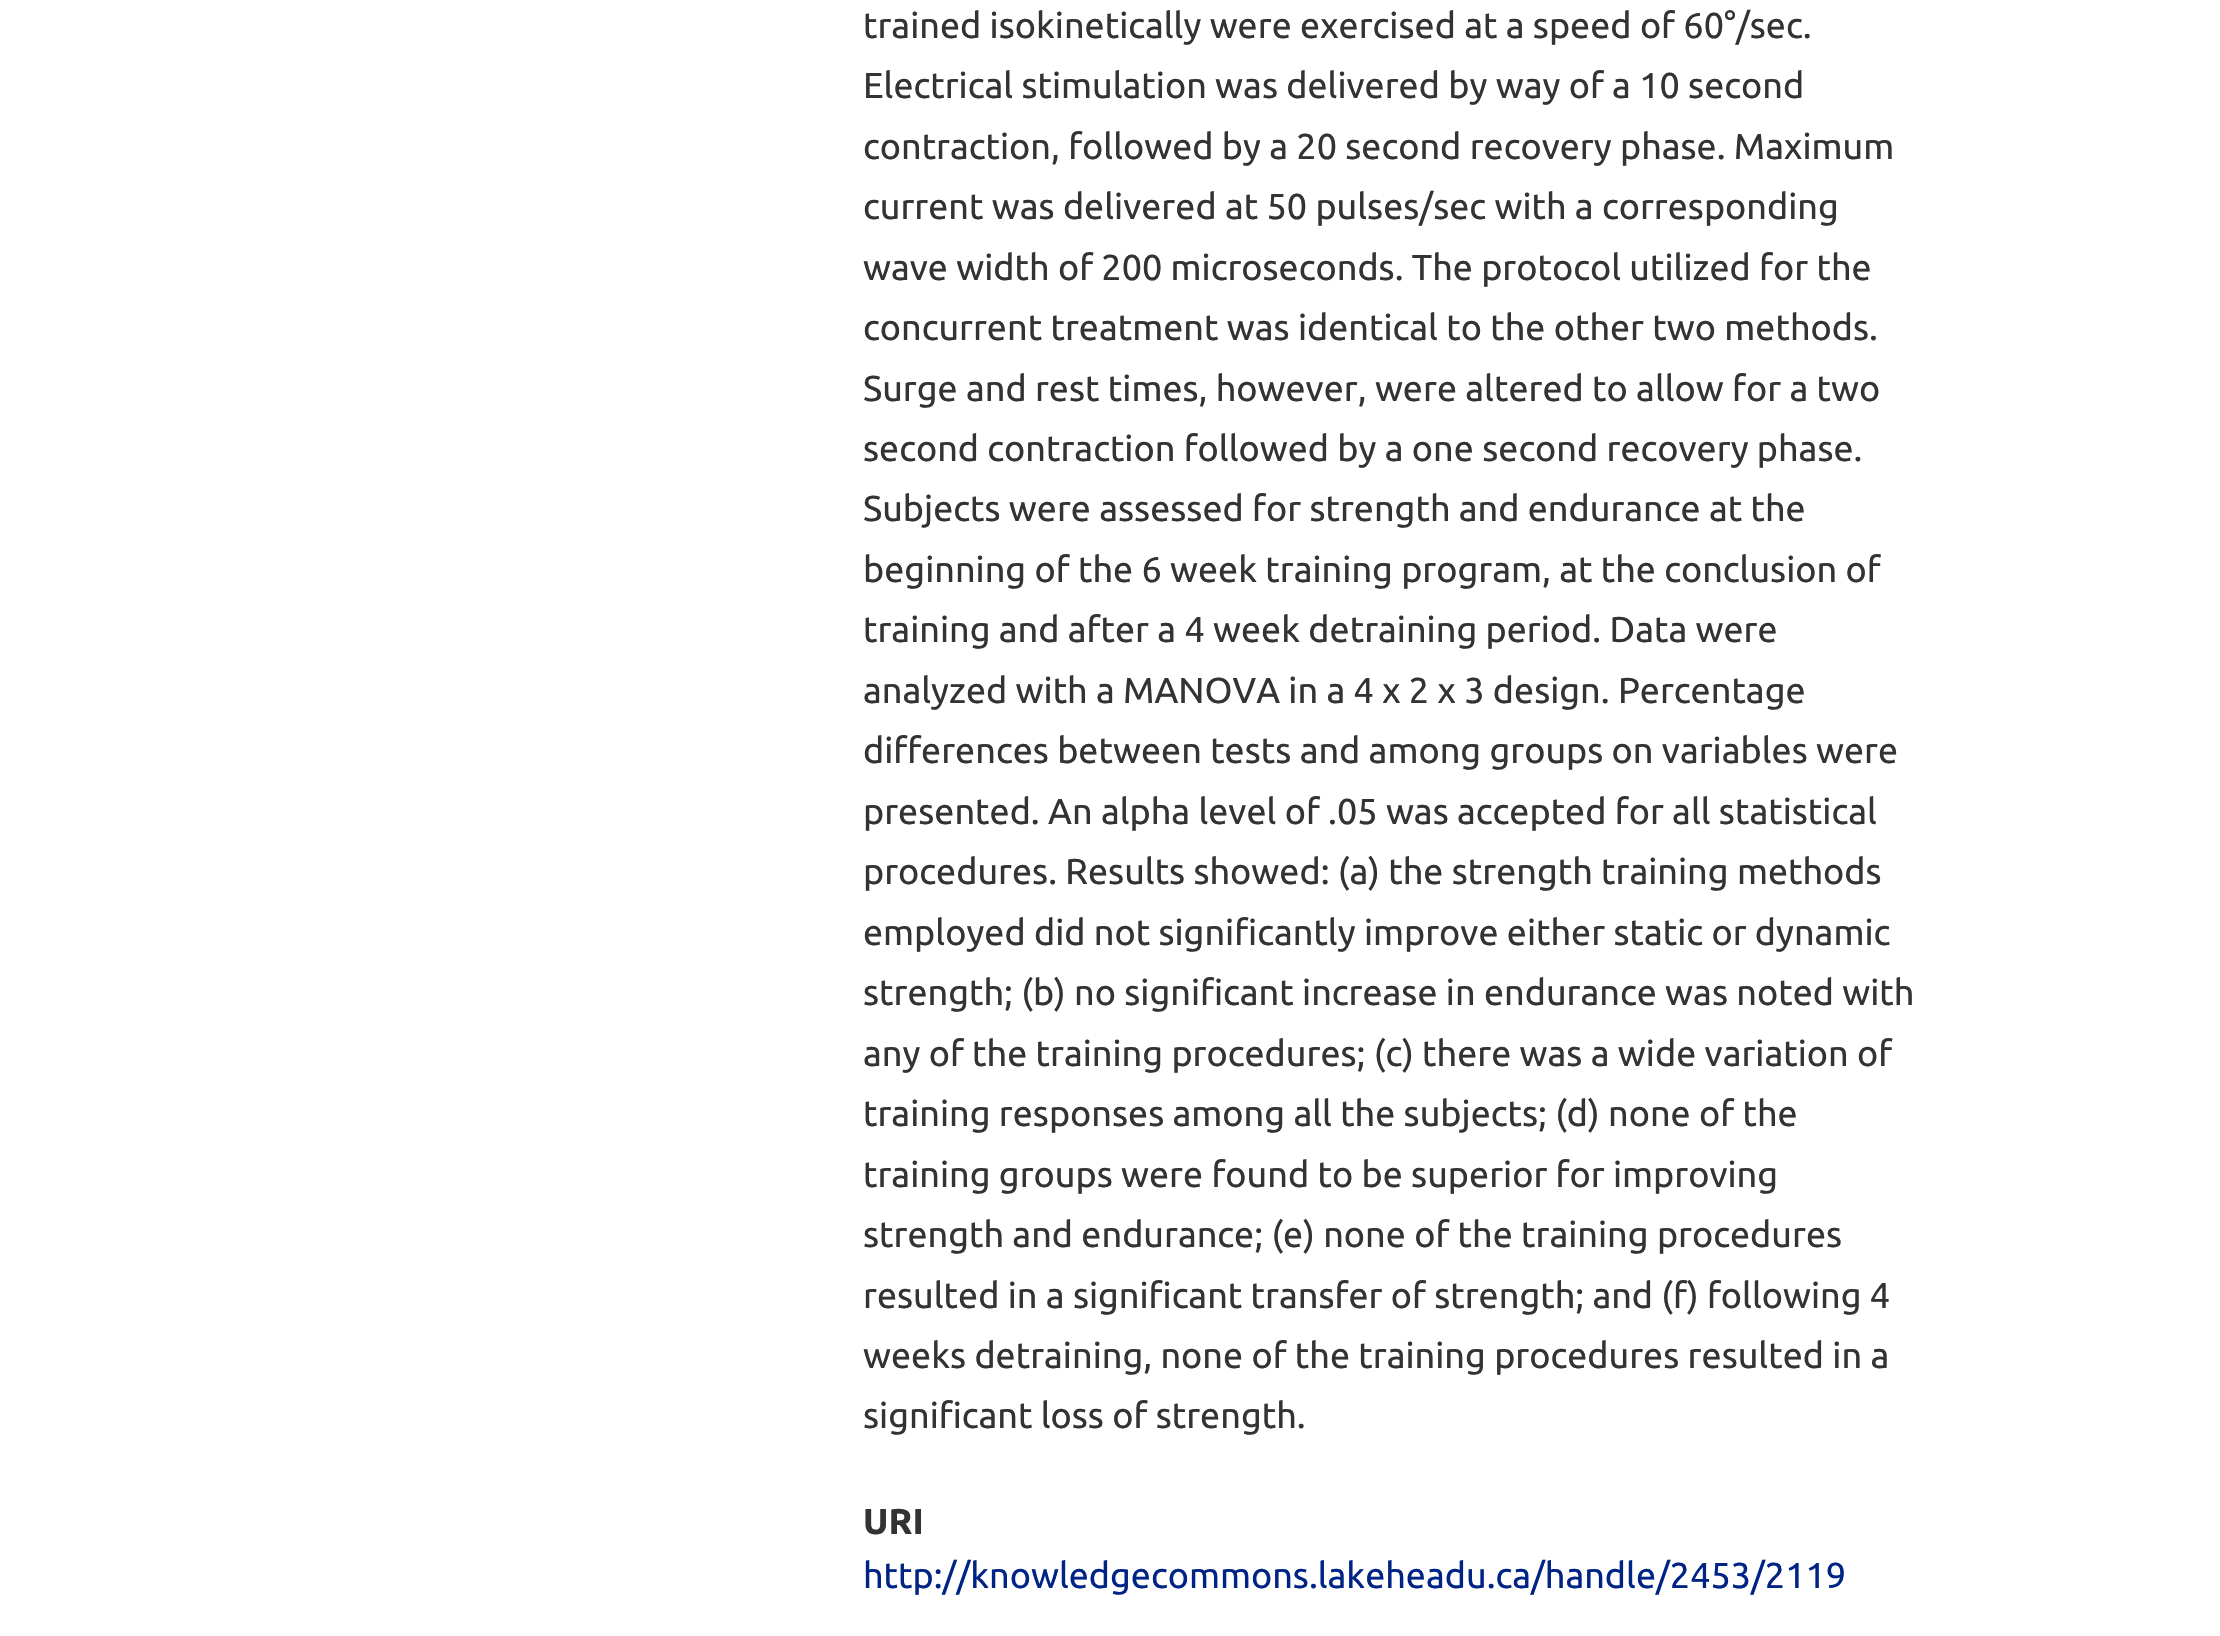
void draw(SkCanvas* canvas) {
    SkPaint paint;
    paint.setAntiAlias(true);
    auto face = [&](const char* family, int weight, float size, bool italic = false) {
        SkFontStyle style(weight, SkFontStyle::kNormal_Width,
            italic ? SkFontStyle::kItalic_Slant : SkFontStyle::kUpright_Slant);
        SkFont result(fontMgr->matchFamilyStyle(family, style), size);
        result.setSubpixel(true);
        return result;
    };
    auto write = [&](const char* s, float x, float y, const SkFont& font, SkColor color) {
        SkPaint ink(SkColor4f::FromColor(color));
        ink.setAntiAlias(true);
        canvas->drawString(s, x, y, font, ink);
    };
    canvas->clear(SK_ColorWHITE);
    auto kFont1 = face("Ubuntu", 400, 36);
    write("trained isokinetically were exercised at a speed of 60°/sec.", 863, 38, kFont1, SkColorSetRGB(51, 51, 51));
    write("Electrical stimulation was delivered by way of a 10 second", 863, 98, kFont1, SkColorSetRGB(51, 51, 51));
    write("contraction, followed by a 20 second recovery phase. Maximum", 863, 159, kFont1, SkColorSetRGB(51, 51, 51));
    write("current was delivered at 50 pulses/sec with a corresponding", 863, 219, kFont1, SkColorSetRGB(51, 51, 51));
    write("wave width of 200 microseconds. The protocol utilized for the", 863, 280, kFont1, SkColorSetRGB(51, 51, 51));
    write("concurrent treatment was identical to the other two methods.", 863, 340, kFont1, SkColorSetRGB(51, 51, 51));
    write("Surge and rest times, however, were altered to allow for a two", 863, 401, kFont1, SkColorSetRGB(51, 51, 51));
    write("second contraction followed by a one second recovery phase.", 863, 461, kFont1, SkColorSetRGB(51, 51, 51));
    write("Subjects were assessed for strength and endurance at the", 863, 521, kFont1, SkColorSetRGB(51, 51, 51));
    write("beginning of the 6 week training program, at the conclusion of", 863, 582, kFont1, SkColorSetRGB(51, 51, 51));
    write("training and after a 4 week detraining period. Data were", 863, 642, kFont1, SkColorSetRGB(51, 51, 51));
    write("analyzed with a MANOVA in a 4 x 2 x 3 design. Percentage", 863, 703, kFont1, SkColorSetRGB(51, 51, 51));
    write("differences between tests and among groups on variables were", 863, 763, kFont1, SkColorSetRGB(51, 51, 51));
    write("presented. An alpha level of .05 was accepted for all statistical", 863, 824, kFont1, SkColorSetRGB(51, 51, 51));
    write("procedures. Results showed: (a) the strength training methods", 863, 884, kFont1, SkColorSetRGB(51, 51, 51));
    write("employed did not significantly improve either static or dynamic", 863, 945, kFont1, SkColorSetRGB(51, 51, 51));
    write("strength; (b) no significant increase in endurance was noted with", 863, 1005, kFont1, SkColorSetRGB(51, 51, 51));
    write("any of the training procedures; (c) there was a wide variation of", 863, 1066, kFont1, SkColorSetRGB(51, 51, 51));
    write("training responses among all the subjects; (d) none of the", 863, 1126, kFont1, SkColorSetRGB(51, 51, 51));
    write("training groups were found to be superior for improving", 863, 1187, kFont1, SkColorSetRGB(51, 51, 51));
    write("strength and endurance; (e) none of the training procedures", 863, 1247, kFont1, SkColorSetRGB(51, 51, 51));
    write("resulted in a significant transfer of strength; and (f) following 4", 863, 1308, kFont1, SkColorSetRGB(51, 51, 51));
    write("weeks detraining, none of the training procedures resulted in a", 863, 1368, kFont1, SkColorSetRGB(51, 51, 51));
    write("significant loss of strength.", 863, 1428, kFont1, SkColorSetRGB(51, 51, 51));
    auto kFont2 = face("Ubuntu", 700, 36);
    write("URI", 863, 1534, kFont2, SkColorSetRGB(51, 51, 51));
    write("http://knowledgecommons.lakeheadu.ca/handle/2453/2119", 863, 1588, kFont1, SkColorSetRGB(0, 36, 133));
}
